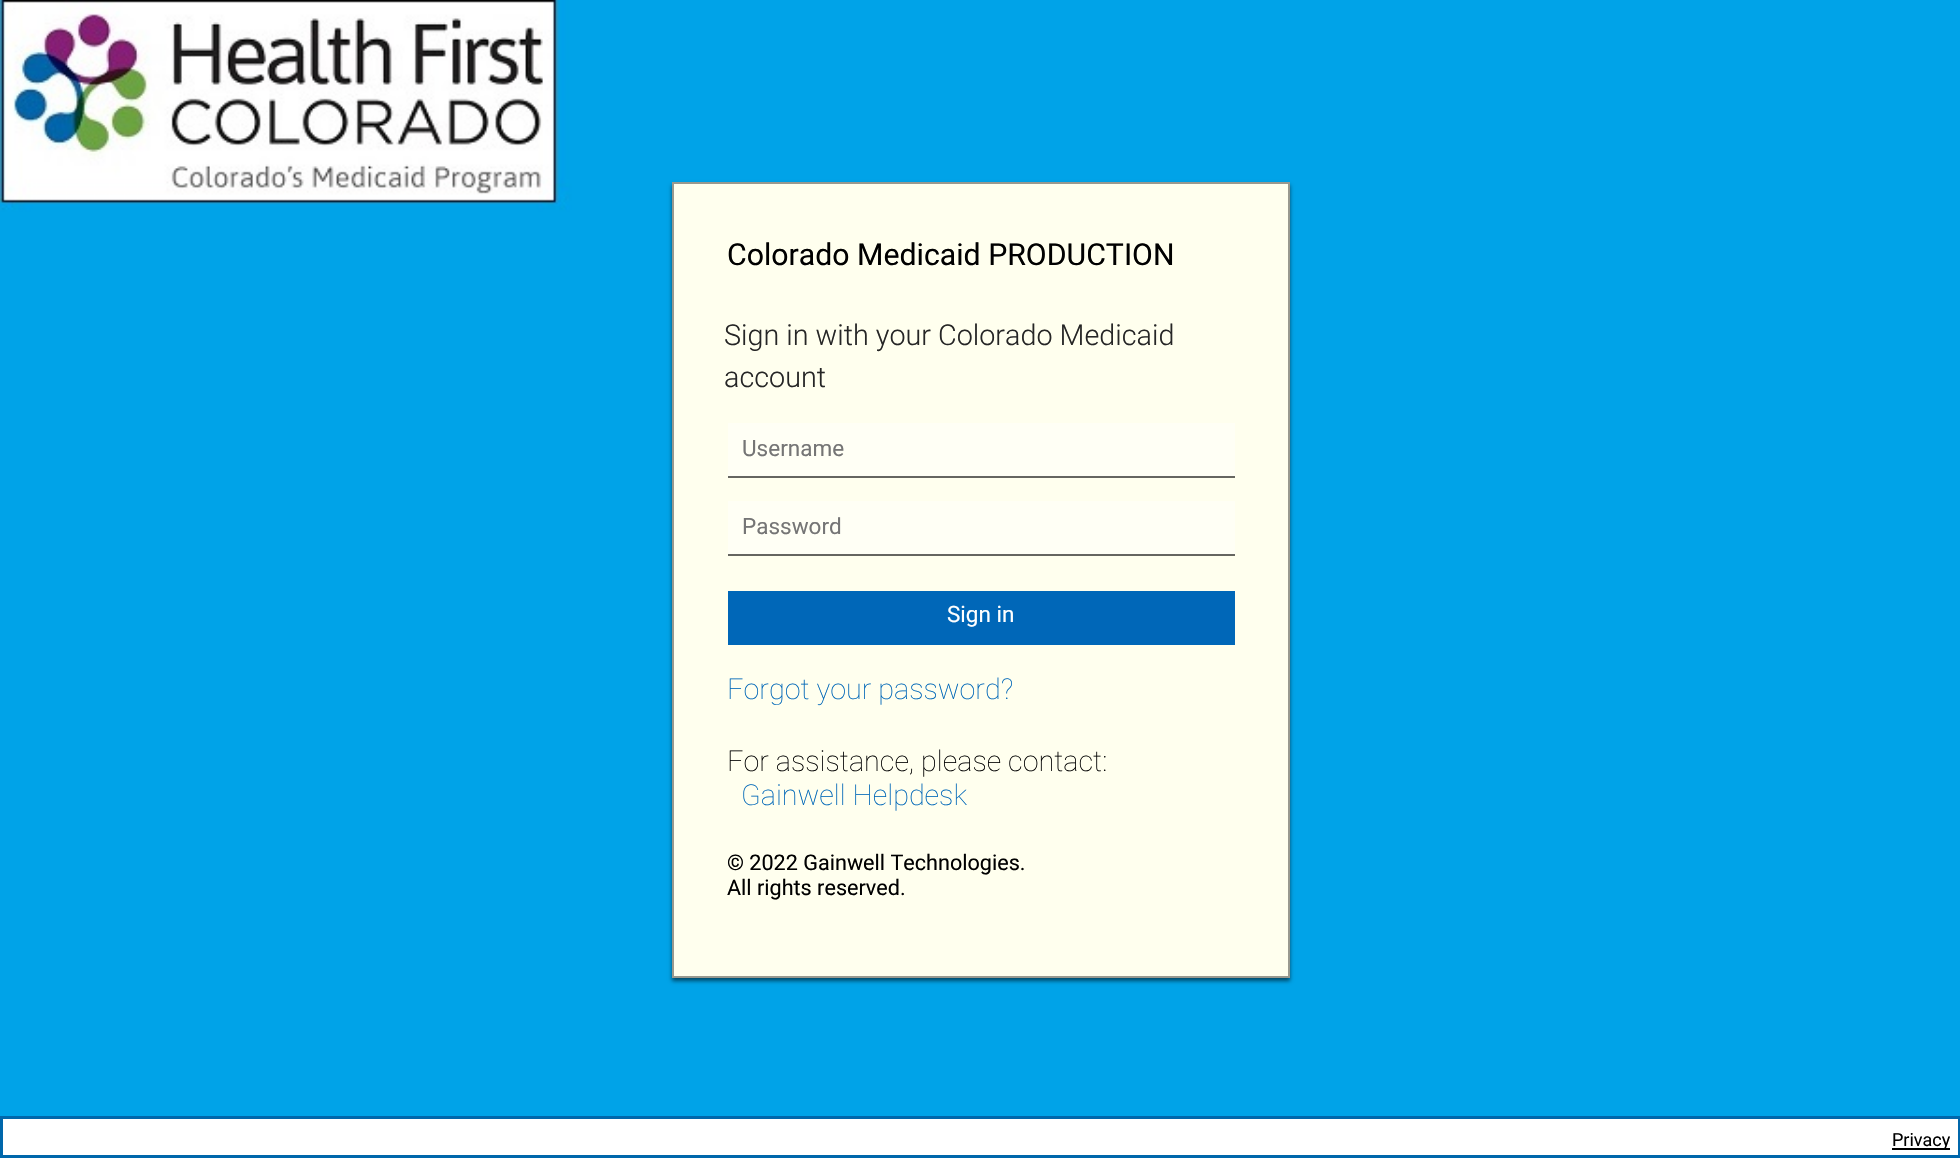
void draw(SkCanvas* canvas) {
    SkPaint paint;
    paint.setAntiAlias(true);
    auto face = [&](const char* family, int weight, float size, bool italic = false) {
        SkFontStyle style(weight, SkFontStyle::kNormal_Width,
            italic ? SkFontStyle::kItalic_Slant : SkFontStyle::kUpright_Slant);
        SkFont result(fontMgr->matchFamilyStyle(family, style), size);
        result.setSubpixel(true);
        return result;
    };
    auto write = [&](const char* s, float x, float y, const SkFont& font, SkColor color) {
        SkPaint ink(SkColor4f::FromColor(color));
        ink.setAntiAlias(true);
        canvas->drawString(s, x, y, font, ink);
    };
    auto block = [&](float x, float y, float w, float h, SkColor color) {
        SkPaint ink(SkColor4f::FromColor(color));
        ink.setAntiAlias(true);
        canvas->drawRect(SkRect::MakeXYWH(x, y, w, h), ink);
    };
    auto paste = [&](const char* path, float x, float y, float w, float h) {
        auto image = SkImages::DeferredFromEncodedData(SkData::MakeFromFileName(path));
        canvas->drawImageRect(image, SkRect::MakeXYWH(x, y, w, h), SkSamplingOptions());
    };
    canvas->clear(SK_ColorWHITE);
    paste("pic1.png", 0, 0, 1960, 1116);
    paint.setColor(SkColorSetARGB(140, 0, 0, 0));
    paint.setMaskFilter(SkMaskFilter::MakeBlur(kNormal_SkBlurStyle, 2));
    canvas->drawRect(SkRect::MakeXYWH(672, 185, 618, 796), paint);
    paint.setMaskFilter(nullptr);
    paint.setColor(SkColorSetRGB(255, 255, 238));
    canvas->drawRect(SkRect::MakeXYWH(673, 183, 616, 794), paint);
    paint.setStyle(SkPaint::kStroke_Style);
    paint.setStrokeWidth(2);
    paint.setColor(SkColorSetRGB(153, 153, 143));
    canvas->drawRect(SkRect::MakeXYWH(673, 183, 616, 794), paint);
    auto kFont1 = face("Roboto", 400, 30.25f);
    write("Colorado Medicaid PRODUCTION", 727, 265, kFont1, SK_ColorBLACK);
    auto kFont2 = face("Roboto", 300, 28.75f);
    write("Sign in with your Colorado Medicaid", 724, 345, kFont2, SkColorSetRGB(38, 38, 38));
    write("account", 724, 387, kFont2, SkColorSetRGB(38, 38, 38));
    block(728, 423, 507, 54, SkColorSetRGB(255, 255, 245));
    block(728, 476, 507, 2, SkColorSetARGB(153, 0, 0, 0));
    auto kFont3 = face("Roboto", 400, 22.5f);
    write("Username", 742, 456, kFont3, SkColorSetRGB(117, 117, 117));
    block(728, 501, 507, 54, SkColorSetRGB(255, 255, 245));
    block(728, 554, 507, 2, SkColorSetARGB(153, 0, 0, 0));
    write("Password", 742, 534, kFont3, SkColorSetRGB(117, 117, 117));
    block(728, 591, 507, 54, SkColorSetRGB(0, 103, 184));
    write("Sign in", 947, 622, kFont3, SK_ColorWHITE);
    auto kFont4 = face("Roboto", 100, 28.75f);
    write("Forgot your password?", 727, 699, kFont4, SkColorSetRGB(0, 103, 184));
    write("For assistance, please contact:", 727, 771, kFont4, SK_ColorBLACK);
    write("Gainwell Helpdesk", 741, 805, kFont4, SkColorSetRGB(0, 103, 184));
    auto kFont5 = face("Roboto", 400, 21.6f);
    write("© 2022 Gainwell Technologies.", 727, 870, kFont5, SK_ColorBLACK);
    write("All rights reserved.", 727, 895, kFont5, SK_ColorBLACK);
    paint.setStrokeWidth(3);
    paint.setColor(SkColorSetRGB(0, 103, 171));
    canvas->drawRect(SkRect::MakeXYWH(1.5f, 1117.5f, 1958, 39), paint);
    block(1892, 1148, 58, 2, SK_ColorBLACK);
    auto kFont6 = face("Roboto", 400, 18);
    write("Privacy", 1892, 1146, kFont6, SK_ColorBLACK);
}
